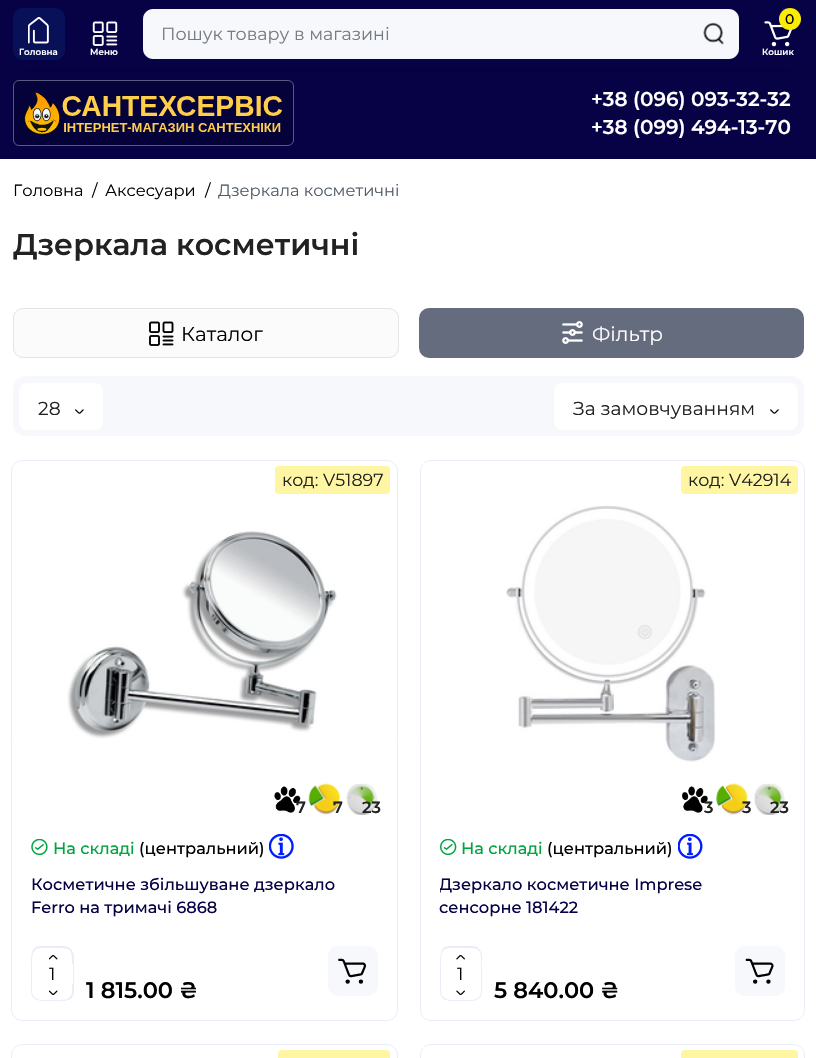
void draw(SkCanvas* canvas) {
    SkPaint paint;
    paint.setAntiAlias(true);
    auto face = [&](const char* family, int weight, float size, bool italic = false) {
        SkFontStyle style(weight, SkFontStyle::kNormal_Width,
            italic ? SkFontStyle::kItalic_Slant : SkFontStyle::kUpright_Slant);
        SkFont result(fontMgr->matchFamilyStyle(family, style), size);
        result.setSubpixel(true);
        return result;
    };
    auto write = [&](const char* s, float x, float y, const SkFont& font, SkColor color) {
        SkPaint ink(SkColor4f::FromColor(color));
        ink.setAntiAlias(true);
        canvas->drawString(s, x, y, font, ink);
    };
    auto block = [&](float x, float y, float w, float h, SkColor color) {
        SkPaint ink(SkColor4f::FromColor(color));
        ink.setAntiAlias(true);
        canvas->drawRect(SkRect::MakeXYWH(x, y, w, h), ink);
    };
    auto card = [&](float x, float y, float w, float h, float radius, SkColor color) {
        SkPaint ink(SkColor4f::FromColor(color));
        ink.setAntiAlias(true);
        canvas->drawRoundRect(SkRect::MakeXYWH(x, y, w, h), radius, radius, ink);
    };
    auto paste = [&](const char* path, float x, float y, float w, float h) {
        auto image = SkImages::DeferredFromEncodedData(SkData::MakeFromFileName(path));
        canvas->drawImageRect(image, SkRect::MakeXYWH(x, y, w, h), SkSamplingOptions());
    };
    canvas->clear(SK_ColorWHITE);
    block(0, 68, 816, 91, SkColorSetRGB(6, 2, 69));
    card(13, 80, 281, 66, 6, SkColorSetRGB(5, 2, 57));
    paint.setStyle(SkPaint::kStroke_Style);
    paint.setStrokeWidth(1);
    paint.setColor(SkColorSetARGB(87, 255, 255, 255));
    canvas->drawRoundRect(SkRect::MakeXYWH(13.5f, 80.5f, 280, 65), 5.5f, 5.5f, paint);
    paint.setStyle(SkPaint::kFill_Style);
    paint.setColor(SkColorSetARGB(102, 0, 0, 0));
    paint.setMaskFilter(SkMaskFilter::MakeBlur(kNormal_SkBlurStyle, 9.5f));
    canvas->drawRect(SkRect::MakeXYWH(9, 9, 799, 50), paint);
    paint.setMaskFilter(nullptr);
    block(0, 0, 816, 68, SkColorSetRGB(6, 2, 69));
    paint.setColor(SkColorSetRGB(247, 248, 251));
    canvas->drawPath(SkPathBuilder().moveTo(153, 9).lineTo(695, 9).lineTo(695, 59).lineTo(153, 59).cubicTo(147.5f, 59, 143, 54.5f, 143, 49).lineTo(143, 19).cubicTo(143, 13.5f, 147.5f, 9, 153, 9).close().detach(), paint);
    auto kFont1 = face("Montserrat", 400, 17.5f);
    write("Пошук товару в магазині", 161, 40, kFont1, SkColorSetRGB(117, 124, 131));
    canvas->drawPath(SkPathBuilder().moveTo(695, 9).lineTo(729, 9).cubicTo(734.5f, 9, 739, 13.5f, 739, 19).lineTo(739, 49).cubicTo(739, 54.5f, 734.5f, 59, 729, 59).lineTo(695, 59).close().detach(), paint);
    paste("pic1.png", 703, 22, 21, 23);
    paste("pic2.png", 764, 21, 29, 26);
    paint.setColor(SkColorSetRGB(252, 236, 3));
    canvas->drawCircle(790, 19, 11, paint);
    auto kFont2 = face("Montserrat", 500, 14);
    write("0", 785, 24, kFont2, SK_ColorBLACK);
    auto kFont3 = face("Montserrat", 600, 8.75f);
    write("Кошик", 762, 55, kFont3, SK_ColorWHITE);
    card(13, 8, 52, 52, 10, SkColorSetRGB(8, 16, 88));
    paste("pic3.png", 28, 17, 21, 27);
    write("Головна", 19, 55, kFont3, SK_ColorWHITE);
    paste("pic4.png", 92, 21, 26, 25);
    write("Меню", 90, 55, kFont3, SK_ColorWHITE);
    paste("pic5.png", 24, 91, 258, 44);
    auto kFont4 = face("Montserrat", 600, 20);
    write("+38 (096) 093-32-32", 591, 106, kFont4, SK_ColorWHITE);
    write("+38 (099) 494-13-70", 591, 134, kFont4, SK_ColorWHITE);
    auto kFont5 = face("Montserrat", 400, 16.25f);
    write("Головна", 13, 196, kFont5, SK_ColorBLACK);
    write("/", 92, 196, kFont5, SK_ColorBLACK);
    write("Аксесуари", 105, 196, kFont5, SK_ColorBLACK);
    write("/", 205, 196, kFont5, SK_ColorBLACK);
    write("Дзеркала косметичні", 218, 196, kFont5, SkColorSetRGB(83, 93, 103));
    auto kFont6 = face("Montserrat", 600, 30);
    write("Дзеркала косметичні", 13, 255, kFont6, SkColorSetRGB(34, 34, 34));
    paint.setColor(SkColorSetRGB(251, 251, 251));
    canvas->drawRoundRect(SkRect::MakeXYWH(13.5f, 308.5f, 385, 49), 9.5f, 9.5f, paint);
    paint.setStyle(SkPaint::kStroke_Style);
    paint.setColor(SkColorSetRGB(228, 228, 228));
    canvas->drawRoundRect(SkRect::MakeXYWH(13.5f, 308.5f, 385, 49), 9.5f, 9.5f, paint);
    paste("pic6.png", 149, 321, 25, 25);
    auto kFont7 = face("Montserrat", 400, 20);
    write("Каталог", 181, 341, kFont7, SK_ColorBLACK);
    card(419, 308, 385, 50, 10, SkColorSetRGB(101, 108, 125));
    paste("pic7.png", 562, 321, 21, 23);
    write("Фільтр", 592, 341, kFont7, SK_ColorWHITE);
    card(13, 376, 791, 60, 13, SkColorSetRGB(247, 248, 251));
    card(19, 383, 84, 47, 8, SK_ColorWHITE);
    auto kFont8 = face("Montserrat", 400, 18.75f);
    write("28", 38, 415, kFont8, SkColorSetRGB(34, 34, 34));
    paste("pic8.png", 75, 409, 9, 5);
    card(554, 383, 244, 47, 8, SK_ColorWHITE);
    write("За замовчуванням", 573, 415, kFont8, SkColorSetRGB(34, 34, 34));
    paste("pic8.png", 770, 409, 9, 5);
    paint.setColor(SkColorSetRGB(234, 237, 247));
    canvas->drawRoundRect(SkRect::MakeXYWH(11.5f, 460.5f, 386, 560), 10.5f, 10.5f, paint);
    card(275, 466, 115, 28, 4, SkColorSetRGB(255, 246, 163));
    write("код: V51897", 282, 486, kFont1, SkColorSetRGB(34, 34, 34));
    paste("pic9.png", 67, 531, 270, 208);
    paste("pic10.png", 274, 786, 27, 27);
    auto kFont9 = face("Montserrat", 600, 16.25f);
    write("7", 296, 813, kFont9, SkColorSetRGB(34, 34, 34));
    paste("pic11.png", 308, 783, 32, 32);
    write("7", 333, 813, kFont9, SkColorSetRGB(34, 34, 34));
    paste("pic12.png", 346, 783, 32, 32);
    write("23", 362, 813, kFont9, SkColorSetRGB(34, 34, 34));
    paste("pic13.png", 31, 839, 17, 17);
    auto kFont10 = face("Montserrat", 500, 16.25f);
    write("На складі", 53, 854, kFont10, SkColorSetRGB(0, 165, 63));
    write("(центральний)", 139, 854, kFont10, SK_ColorBLACK);
    paste("pic14.png", 269, 834, 25, 25);
    write("Косметичне збільшуване дзеркало", 31, 890, kFont10, SkColorSetRGB(6, 2, 69));
    write("Ferro на тримачі 6868", 31, 913, kFont10, SkColorSetRGB(6, 2, 69));
    paint.setStyle(SkPaint::kFill_Style);
    canvas->drawPath(SkPathBuilder(SkPathFillType::kEvenOdd).moveTo(41, 946).lineTo(64, 946).cubicTo(69, 946, 74, 951, 74, 956).lineTo(74, 964).lineTo(31, 964).cubicTo(31, 956, 31, 946, 41, 946).close().moveTo(41, 948).lineTo(60, 948).cubicTo(73, 948, 72, 953, 72, 964).lineTo(32, 964).cubicTo(32, 957, 32, 948, 41, 948).close().detach(), paint);
    paste("pic15.png", 49, 955, 9, 5);
    block(73, 964, 1, 20, SkColorSetRGB(234, 237, 247));
    block(31, 964, 1, 20, SkColorSetRGB(234, 237, 247));
    write("1", 49, 980, kFont1, SK_ColorBLACK);
    canvas->drawPath(SkPathBuilder(SkPathFillType::kEvenOdd).moveTo(31, 984).lineTo(74, 984).lineTo(74, 993).cubicTo(72, 1003, 60, 1001, 52, 1001).cubicTo(45, 1001, 31, 1003, 31, 991).close().moveTo(32, 984).lineTo(72, 984).lineTo(72, 993).cubicTo(70, 1002, 59, 1000, 52, 1000).cubicTo(45, 1000, 32, 1002, 32, 991).close().detach(), paint);
    paste("pic16.png", 49, 990, 9, 5);
    card(328, 946, 50, 50, 10, SkColorSetRGB(247, 248, 251));
    paste("pic17.png", 338, 958, 28, 26);
    auto kFont11 = face("Montserrat", 600, 22.5f);
    write("1 815.00 ₴", 86, 998, kFont11, SK_ColorBLACK);
    paint.setStyle(SkPaint::kStroke_Style);
    canvas->drawRoundRect(SkRect::MakeXYWH(420.5f, 460.5f, 384, 560), 10.5f, 10.5f, paint);
    card(421, 461, 383, 559, 10, SK_ColorWHITE);
    card(681, 466, 117, 28, 4, SkColorSetRGB(255, 246, 163));
    write("код: V42914", 688, 486, kFont1, SkColorSetRGB(34, 34, 34));
    paste("pic18.png", 506, 505, 210, 257);
    paste("pic19.png", 682, 786, 26, 27);
    write("3", 704, 813, kFont9, SkColorSetRGB(34, 34, 34));
    paste("pic20.png", 716, 783, 32, 32);
    write("3", 742, 813, kFont9, SkColorSetRGB(34, 34, 34));
    paste("pic21.png", 754, 783, 31, 32);
    write("23", 770, 813, kFont9, SkColorSetRGB(34, 34, 34));
    paste("pic22.png", 440, 839, 17, 17);
    write("На складі", 461, 854, kFont10, SkColorSetRGB(0, 165, 63));
    write("(центральний)", 547, 854, kFont10, SK_ColorBLACK);
    paste("pic23.png", 678, 834, 25, 25);
    canvas->save();
    canvas->clipRect(SkRect::MakeXYWH(440, 873, 345, 45));
    write("Дзеркало косметичне Imprese", 439, 890, kFont10, SkColorSetRGB(6, 2, 69));
    canvas->restore();
    write("сенсорне 181422", 439, 913, kFont10, SkColorSetRGB(6, 2, 69));
    paint.setStyle(SkPaint::kFill_Style);
    canvas->drawPath(SkPathBuilder(SkPathFillType::kEvenOdd).moveTo(450, 946).lineTo(472, 946).cubicTo(478, 946, 482, 951, 482, 956).lineTo(482, 964).lineTo(440, 964).cubicTo(440, 956, 440, 946, 450, 946).close().moveTo(450, 948).lineTo(469, 948).cubicTo(482, 948, 481, 953, 481, 964).lineTo(441, 964).cubicTo(441, 957, 440, 948, 450, 948).close().detach(), paint);
    paste("pic24.png", 456, 955, 9, 5);
    block(481, 964, 1, 20, SkColorSetRGB(234, 237, 247));
    block(440, 964, 1, 20, SkColorSetRGB(234, 237, 247));
    write("1", 457, 980, kFont1, SK_ColorBLACK);
    canvas->drawPath(SkPathBuilder(SkPathFillType::kEvenOdd).moveTo(440, 984).lineTo(482, 984).lineTo(482, 993).cubicTo(480, 1003, 469, 1001, 461, 1001).cubicTo(453, 1001, 440, 1003, 440, 991).close().moveTo(441, 984).lineTo(481, 984).lineTo(481, 993).cubicTo(479, 1002, 468, 1000, 461, 1000).cubicTo(454, 1000, 441, 1002, 441, 991).close().detach(), paint);
    paste("pic25.png", 456, 990, 9, 5);
    card(735, 946, 50, 50, 10, SkColorSetRGB(247, 248, 251));
    paste("pic26.png", 745, 958, 29, 26);
    write("5 840.00 ₴", 494, 998, kFont11, SK_ColorBLACK);
    paint.setStyle(SkPaint::kStroke_Style);
    canvas->drawRoundRect(SkRect::MakeXYWH(11.5f, 1044.5f, 386, 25), 10.5f, 10.5f, paint);
    card(278, 1050, 112, 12, 4, SkColorSetRGB(255, 246, 163));
    canvas->drawRoundRect(SkRect::MakeXYWH(420.5f, 1044.5f, 384, 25), 10.5f, 10.5f, paint);
    card(421, 1045, 383, 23, 10, SK_ColorWHITE);
    card(681, 1050, 117, 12, 4, SkColorSetRGB(255, 246, 163));
}
